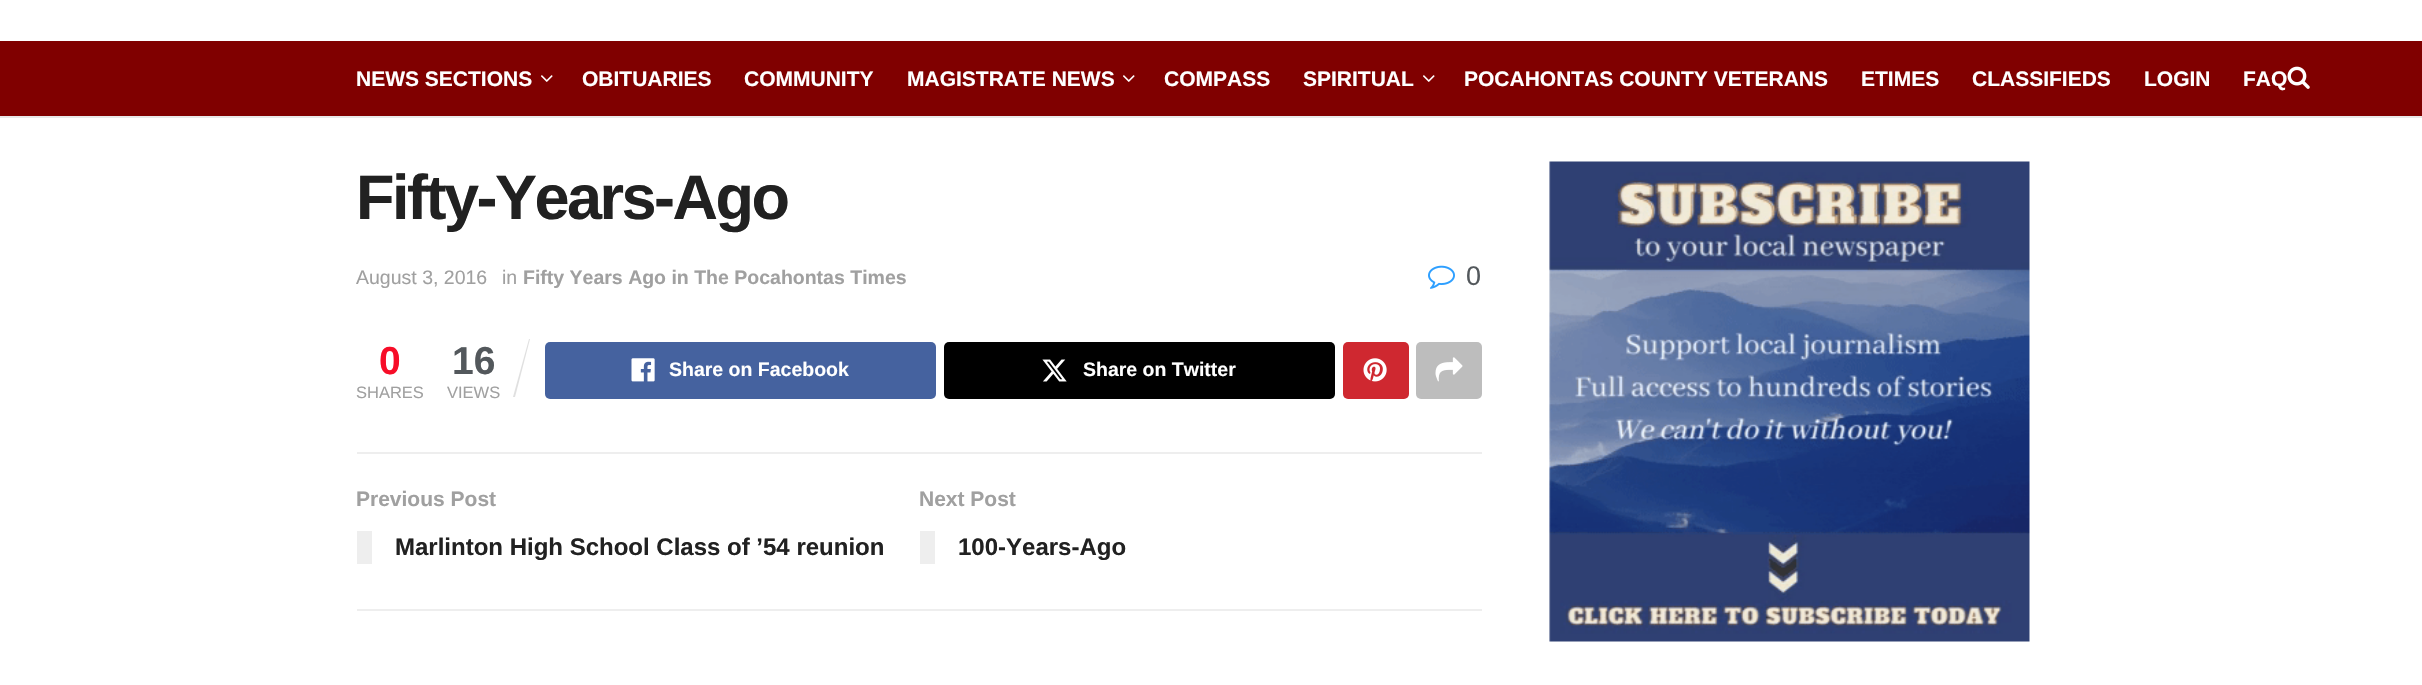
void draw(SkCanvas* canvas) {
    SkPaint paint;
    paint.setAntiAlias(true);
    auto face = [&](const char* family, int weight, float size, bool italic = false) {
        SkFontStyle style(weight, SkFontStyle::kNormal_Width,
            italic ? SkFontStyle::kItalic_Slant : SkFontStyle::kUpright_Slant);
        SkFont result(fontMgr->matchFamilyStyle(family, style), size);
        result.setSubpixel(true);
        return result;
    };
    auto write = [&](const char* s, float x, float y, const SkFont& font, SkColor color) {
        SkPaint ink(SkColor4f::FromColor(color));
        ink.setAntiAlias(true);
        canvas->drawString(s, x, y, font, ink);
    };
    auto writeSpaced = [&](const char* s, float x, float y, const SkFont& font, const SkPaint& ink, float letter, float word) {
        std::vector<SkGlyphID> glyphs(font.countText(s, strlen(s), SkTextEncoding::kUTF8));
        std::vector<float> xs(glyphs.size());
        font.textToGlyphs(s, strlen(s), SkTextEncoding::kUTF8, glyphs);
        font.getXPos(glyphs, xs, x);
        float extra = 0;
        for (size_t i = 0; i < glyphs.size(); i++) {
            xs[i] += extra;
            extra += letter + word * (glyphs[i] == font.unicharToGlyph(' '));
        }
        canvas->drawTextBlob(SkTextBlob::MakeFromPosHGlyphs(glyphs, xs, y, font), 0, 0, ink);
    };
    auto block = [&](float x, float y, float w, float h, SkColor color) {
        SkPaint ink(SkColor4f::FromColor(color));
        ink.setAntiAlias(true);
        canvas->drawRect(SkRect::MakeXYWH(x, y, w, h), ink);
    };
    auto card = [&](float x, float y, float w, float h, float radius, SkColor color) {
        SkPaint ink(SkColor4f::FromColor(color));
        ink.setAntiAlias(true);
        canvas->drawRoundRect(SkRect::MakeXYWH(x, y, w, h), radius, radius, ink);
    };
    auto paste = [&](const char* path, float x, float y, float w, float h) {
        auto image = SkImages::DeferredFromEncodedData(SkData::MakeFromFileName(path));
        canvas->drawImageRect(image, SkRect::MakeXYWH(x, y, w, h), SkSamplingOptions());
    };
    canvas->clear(SK_ColorWHITE);
    block(0, 41, 2422, 75, SkColorSetRGB(128, 0, 0));
    block(0, 116, 2422, 2, SkColorSetRGB(232, 232, 232));
    auto kFont1 = face("Liberation Sans", 700, 21);
    write("NEWS SECTIONS", 356, 86, kFont1, SK_ColorWHITE);
    paste("pic1.png", 541, 75, 12, 7);
    write("OBITUARIES", 582, 86, kFont1, SK_ColorWHITE);
    write("COMMUNITY", 744, 86, kFont1, SK_ColorWHITE);
    write("MAGISTRATE NEWS", 907, 86, kFont1, SK_ColorWHITE);
    paste("pic1.png", 1123, 75, 12, 7);
    write("COMPASS", 1164, 86, kFont1, SK_ColorWHITE);
    write("SPIRITUAL", 1303, 86, kFont1, SK_ColorWHITE);
    paste("pic1.png", 1423, 75, 12, 7);
    write("POCAHONTAS COUNTY VETERANS", 1464, 86, kFont1, SK_ColorWHITE);
    write("ETIMES", 1861, 86, kFont1, SK_ColorWHITE);
    write("CLASSIFIEDS", 1972, 86, kFont1, SK_ColorWHITE);
    write("LOGIN", 2144, 86, kFont1, SK_ColorWHITE);
    write("FAQ", 2243, 86, kFont1, SK_ColorWHITE);
    paste("pic2.png", 2287, 66, 23, 23);
    auto kFont2 = face("Liberation Sans", 700, 63);
    paint.setColor(SkColorSetRGB(33, 33, 33));
    writeSpaced("Fifty-Years-Ago", 356, 219, kFont2, paint, -2.5f, 0);
    auto kFont3 = face("Liberation Sans", 400, 19.5f);
    write("August 3, 2016", 356, 284, kFont3, SkColorSetRGB(160, 160, 160));
    write("in", 502, 284, kFont3, SkColorSetRGB(160, 160, 160));
    auto kFont4 = face("Liberation Sans", 700, 19.5f);
    write("Fifty Years Ago in The Pocahontas Times", 523, 284, kFont4, SkColorSetRGB(160, 160, 160));
    paste("pic3.png", 1428, 265, 27, 24);
    auto kFont5 = face("Liberation Sans", 400, 27);
    write("0", 1466, 285, kFont5, SkColorSetRGB(83, 88, 92));
    auto kFont6 = face("Liberation Sans", 700, 39);
    write("0", 379, 374, kFont6, SkColorSetRGB(247, 13, 40));
    auto kFont7 = face("Liberation Sans", 400, 16.5f);
    write("SHARES", 356, 398, kFont7, SkColorSetRGB(160, 160, 160));
    write("16", 452, 374, kFont6, SkColorSetRGB(83, 88, 92));
    paint.setColor(SkColorSetRGB(224, 224, 224));
    canvas->drawPath(SkPathBuilder().moveTo(529, 339).lineTo(530, 339).lineTo(515, 397).lineTo(513, 397).close().detach(), paint);
    write("VIEWS", 447, 398, kFont7, SkColorSetRGB(160, 160, 160));
    card(545, 342, 391, 57, 5, SkColorSetRGB(69, 98, 159));
    paste("pic4.png", 631, 358, 24, 24);
    write("Share on Facebook", 669, 376, kFont4, SK_ColorWHITE);
    card(944, 342, 391, 57, 5, SK_ColorBLACK);
    paste("pic5.png", 1042, 359, 25, 23);
    write("Share on Twitter", 1083, 376, kFont4, SK_ColorWHITE);
    card(1343, 342, 66, 57, 5, SkColorSetRGB(207, 40, 48));
    paste("pic6.png", 1363, 358, 24, 24);
    card(1416, 342, 66, 57, 5, SkColorSetRGB(189, 189, 189));
    paste("pic7.png", 1435, 357, 28, 25);
    block(357, 452, 1125, 2, SkColorSetRGB(238, 238, 238));
    block(357, 609, 1125, 2, SkColorSetRGB(238, 238, 238));
    write("Previous Post", 356, 506, kFont1, SkColorSetRGB(160, 160, 160));
    block(357, 531, 15, 33, SkColorSetRGB(238, 238, 238));
    auto kFont8 = face("Liberation Sans", 700, 24);
    write("Marlinton High School Class of ’54 reunion", 395, 555, kFont8, SkColorSetRGB(33, 33, 33));
    write("Next Post", 919, 506, kFont1, SkColorSetRGB(160, 160, 160));
    block(920, 531, 15, 33, SkColorSetRGB(238, 238, 238));
    write("100-Years-Ago", 958, 555, kFont8, SkColorSetRGB(33, 33, 33));
    paste("pic8.png", 1549, 161, 481, 481);
}
